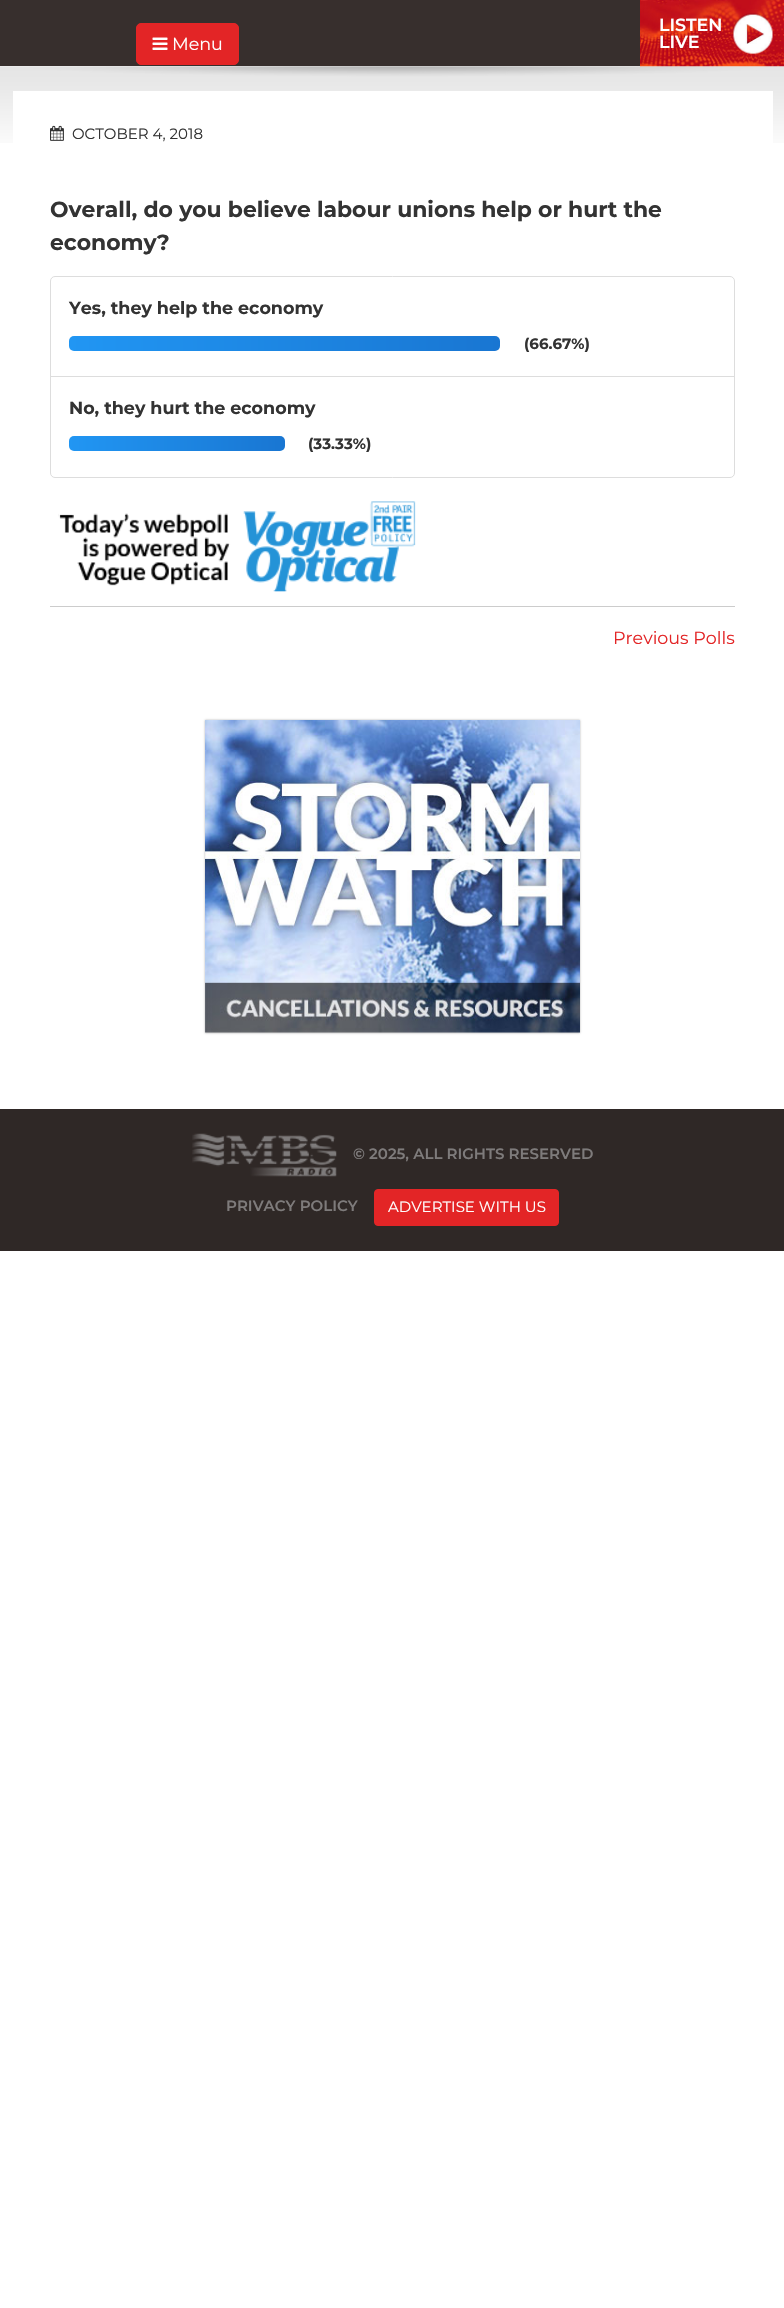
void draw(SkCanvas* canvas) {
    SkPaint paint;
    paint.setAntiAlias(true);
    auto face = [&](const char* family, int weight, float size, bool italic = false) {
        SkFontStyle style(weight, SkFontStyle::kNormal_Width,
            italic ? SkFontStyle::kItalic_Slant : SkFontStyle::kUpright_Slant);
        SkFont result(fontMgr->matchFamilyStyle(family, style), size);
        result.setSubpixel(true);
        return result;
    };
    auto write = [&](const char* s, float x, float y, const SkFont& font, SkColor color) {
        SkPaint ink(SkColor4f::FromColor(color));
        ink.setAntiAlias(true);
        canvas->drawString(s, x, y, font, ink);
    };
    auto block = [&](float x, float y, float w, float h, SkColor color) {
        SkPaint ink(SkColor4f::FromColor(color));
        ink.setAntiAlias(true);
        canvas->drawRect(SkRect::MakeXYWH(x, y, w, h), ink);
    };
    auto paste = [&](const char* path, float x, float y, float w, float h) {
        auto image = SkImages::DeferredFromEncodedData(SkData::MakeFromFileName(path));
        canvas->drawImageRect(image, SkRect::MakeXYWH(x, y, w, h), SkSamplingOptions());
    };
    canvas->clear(SK_ColorWHITE);
    block(0, 0, 640, 66, SkColorSetRGB(55, 47, 45));
    paint.setColor(SkColorSetRGB(227, 37, 38));
    canvas->drawRoundRect(SkRect::MakeXYWH(136.5f, 23.5f, 102, 41), 4.5f, 4.5f, paint);
    paint.setStyle(SkPaint::kStroke_Style);
    paint.setStrokeWidth(1);
    canvas->drawRoundRect(SkRect::MakeXYWH(136.5f, 23.5f, 102, 41), 4.5f, 4.5f, paint);
    paste("pic1.png", 152, 37, 16, 13);
    auto kFont1 = face("Montserrat", 400, 17.5f);
    write("Menu", 172, 50, kFont1, SK_ColorWHITE);
    paste("pic3.png", 0, 66, 784, 77);
    paste("pic2.png", 640, 0, 144, 67);
    auto kFont2 = face("Montserrat", 600, 17.5f);
    write("LISTEN", 659, 31, kFont2, SK_ColorWHITE);
    write("LIVE", 659, 48, kFont2, SK_ColorWHITE);
    block(13, 91, 760, 52, SK_ColorWHITE);
    paste("pic4.png", 50, 125, 14, 16);
    auto kFont3 = face("Montserrat", 400, 15);
    write("OCTOBER 4, 2018", 72, 139, kFont3, SkColorSetRGB(51, 51, 51));
    auto kFont4 = face("Montserrat", 700, 21.9f);
    write("Overall, do you believe labour unions help or hurt the", 50, 217, kFont4, SkColorSetRGB(51, 51, 51));
    write("economy?", 50, 250, kFont4, SkColorSetRGB(51, 51, 51));
    paint.setColor(SkColorSetRGB(221, 221, 221));
    canvas->drawRoundRect(SkRect::MakeXYWH(50.5f, 276.5f, 684, 201), 4.5f, 4.5f, paint);
    auto kFont5 = face("Montserrat", 700, 17.5f);
    write("Yes, they help the economy", 69, 314, kFont5, SkColorSetRGB(51, 51, 51));
    paint.setStyle(SkPaint::kFill_Style);
    {
        const SkColor colors[] = {SkColorSetRGB(33, 150, 243), SkColorSetRGB(25, 118, 210)};
        const float stops[] = {0, 1};
        const SkPoint ends[] = {{69, 344}, {500, 344}};
        paint.setShader(SkGradientShader::MakeLinear(ends, colors, stops, 2, SkTileMode::kClamp));
        paint.setAlpha(255);
    }
    canvas->drawRoundRect(SkRect::MakeXYWH(69, 336, 431, 15), 5, 5, paint);
    auto kFont6 = face("Montserrat", 700, 15);
    write("(66.67%)", 524, 349, kFont6, SkColorSetRGB(51, 51, 51));
    block(51, 376, 683, 1, SkColorSetRGB(221, 221, 221));
    write("No, they hurt the economy", 69, 414, kFont5, SkColorSetRGB(51, 51, 51));
    {
        const SkColor colors[] = {SkColorSetRGB(33, 150, 243), SkColorSetRGB(25, 118, 210)};
        const float stops[] = {0, 1};
        const SkPoint ends[] = {{69, 444}, {285, 444}};
        paint.setShader(SkGradientShader::MakeLinear(ends, colors, stops, 2, SkTileMode::kClamp));
        paint.setAlpha(255);
    }
    canvas->drawRoundRect(SkRect::MakeXYWH(69, 436, 216, 15), 5, 5, paint);
    write("(33.33%)", 308, 449, kFont6, SkColorSetRGB(51, 51, 51));
    paste("pic5.png", 58, 501, 358, 91);
    block(50, 606, 685, 1, SkColorSetRGB(204, 204, 204));
    write("Previous Polls", 613, 644, kFont1, SkColorSetRGB(227, 37, 38));
    paint.setShader(nullptr);
    paint.setColor(SkColorSetARGB(77, 0, 0, 0));
    paint.setMaskFilter(SkMaskFilter::MakeBlur(kNormal_SkBlurStyle, 1));
    canvas->drawRect(SkRect::MakeXYWH(205, 720, 375, 313), paint);
    paint.setMaskFilter(nullptr);
    paste("pic6.png", 205, 720, 375, 313);
    block(0, 1109, 784, 142, SkColorSetRGB(47, 40, 38));
    paste("pic7.png", 192, 1133, 145, 44);
    auto kFont7 = face("Montserrat", 600, 15);
    write("© 2025, ALL RIGHTS RESERVED", 353, 1159, kFont7, SkColorSetRGB(126, 123, 123));
    write("PRIVACY POLICY", 226, 1211, kFont7, SkColorSetRGB(126, 123, 123));
    paint.setColor(SkColorSetRGB(227, 37, 38));
    canvas->drawRoundRect(SkRect::MakeXYWH(374.5f, 1189.5f, 184, 36), 3.5f, 3.5f, paint);
    paint.setStyle(SkPaint::kStroke_Style);
    canvas->drawRoundRect(SkRect::MakeXYWH(374.5f, 1189.5f, 184, 36), 3.5f, 3.5f, paint);
    write("ADVERTISE WITH US", 388, 1212, kFont3, SK_ColorWHITE);
}
